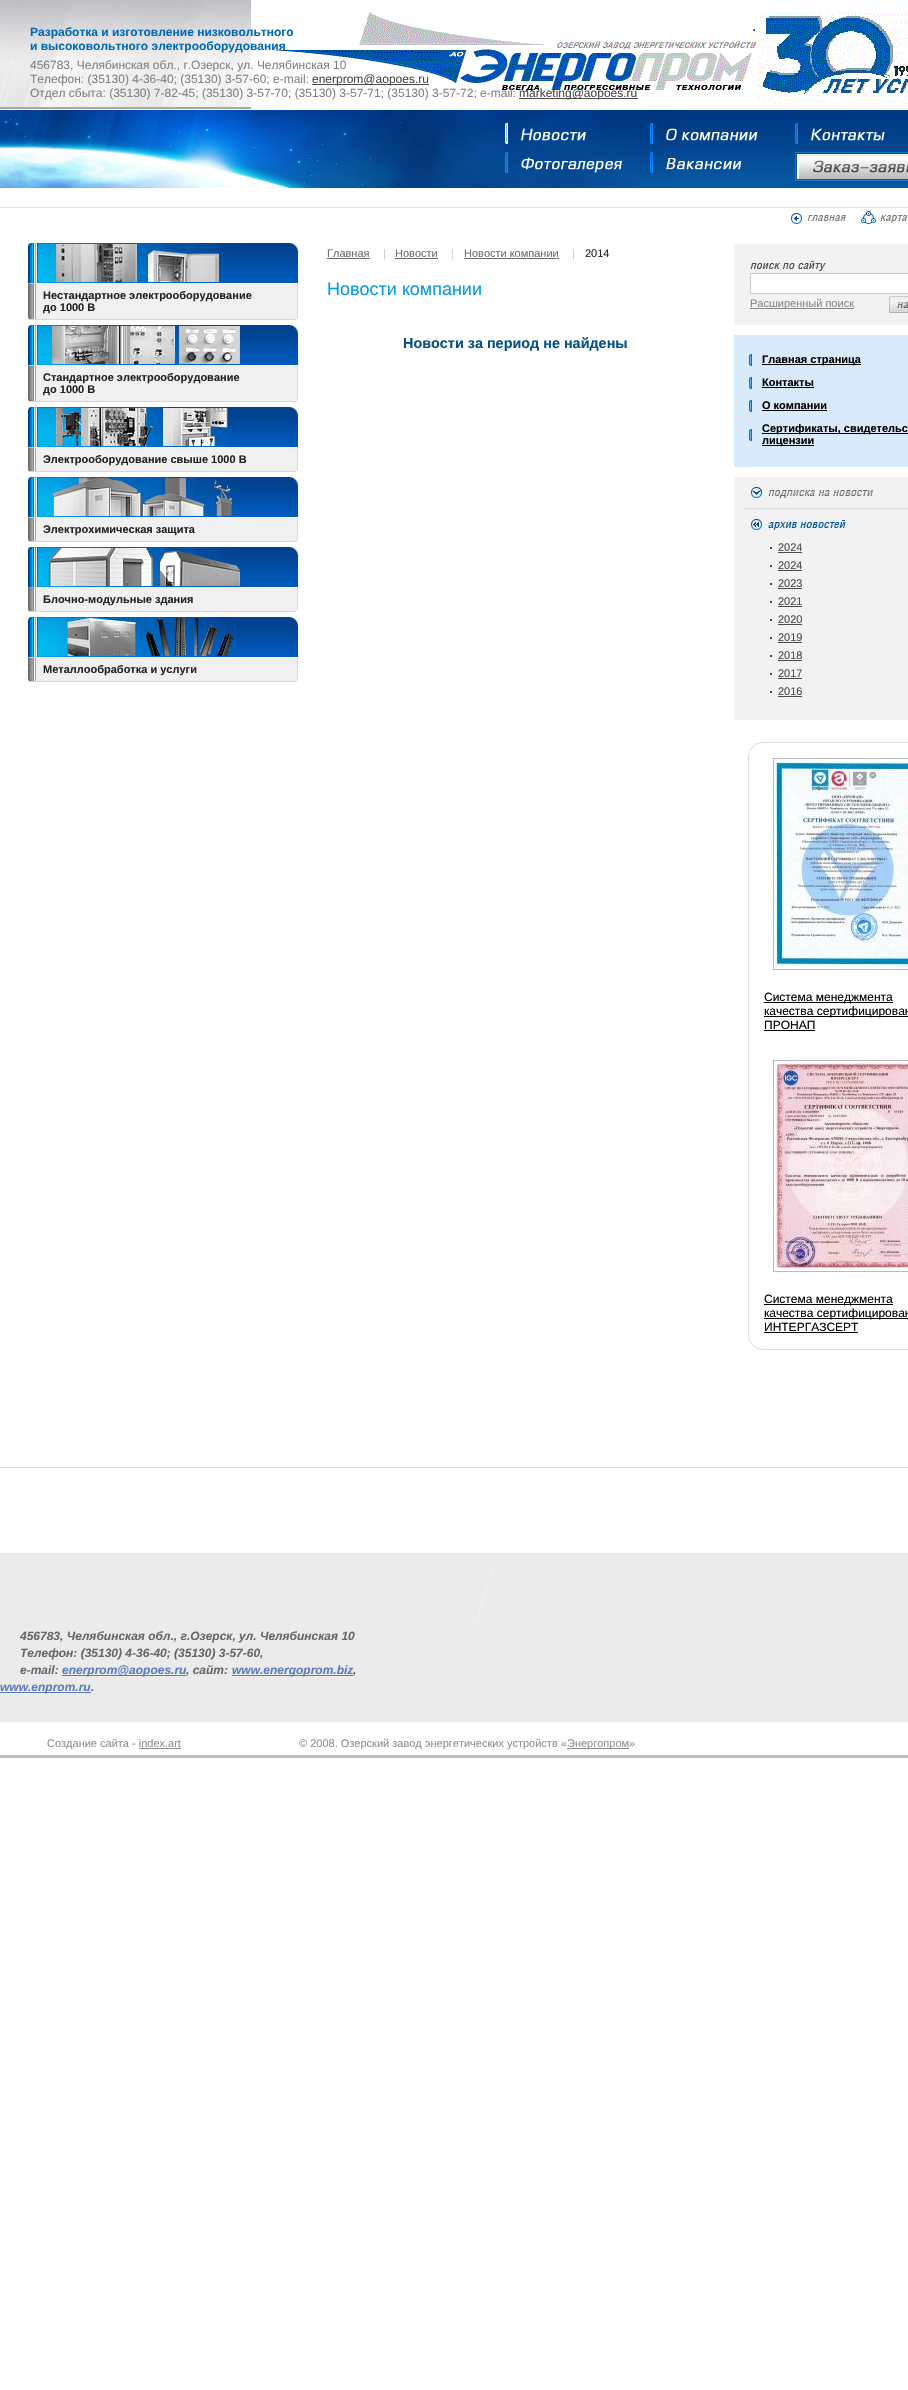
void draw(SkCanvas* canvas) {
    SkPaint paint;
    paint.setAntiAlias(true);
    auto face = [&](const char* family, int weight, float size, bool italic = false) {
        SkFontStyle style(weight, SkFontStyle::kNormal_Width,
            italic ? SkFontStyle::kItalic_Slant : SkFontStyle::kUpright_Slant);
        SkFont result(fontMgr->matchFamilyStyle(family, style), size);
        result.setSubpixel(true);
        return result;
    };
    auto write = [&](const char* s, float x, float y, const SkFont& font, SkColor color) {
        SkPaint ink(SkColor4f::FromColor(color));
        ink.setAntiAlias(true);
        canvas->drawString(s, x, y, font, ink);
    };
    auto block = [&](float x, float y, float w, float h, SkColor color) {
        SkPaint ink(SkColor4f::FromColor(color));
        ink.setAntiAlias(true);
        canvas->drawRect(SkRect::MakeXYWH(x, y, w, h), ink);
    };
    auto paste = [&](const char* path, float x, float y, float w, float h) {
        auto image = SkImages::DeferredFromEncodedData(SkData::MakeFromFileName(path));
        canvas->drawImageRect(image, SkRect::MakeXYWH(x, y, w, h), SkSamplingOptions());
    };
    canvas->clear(SK_ColorWHITE);
    paste("pic1.png", 0, 107, 251, 2);
    paste("pic2.png", 0, 0, 251, 107);
    paste("pic3.png", 251, 0, 657, 109);
    auto kFont1 = face("Liberation Sans", 700, 12);
    write("Разработка и изготовление низковольтного", 30, 36, kFont1, SkColorSetRGB(0, 106, 183));
    write("и высоковольтного электрооборудования", 30, 50, kFont1, SkColorSetRGB(0, 106, 183));
    auto kFont2 = face("Liberation Sans", 400, 12);
    write("456783, Челябинская обл., г.Озерск, ул. Челябинская 10", 30, 69, kFont2, SkColorSetRGB(129, 129, 129));
    write("Телефон: (35130) 4-36-40; (35130) 3-57-60; e-mail:", 30, 83, kFont2, SkColorSetRGB(129, 129, 129));
    block(312, 84, 117, 1, SkColorSetRGB(74, 74, 74));
    write("enerprom@aopoes.ru", 312, 83, kFont2, SkColorSetRGB(74, 74, 74));
    write("Отдел сбыта: (35130) 7-82-45; (35130) 3-57-70; (35130) 3-57-71; (35130) 3-57-72; e-mail:", 30, 97, kFont2, SkColorSetRGB(129, 129, 129));
    block(519, 98, 119, 1, SkColorSetRGB(74, 74, 74));
    write("marketing@aopoes.ru", 519, 97, kFont2, SkColorSetRGB(74, 74, 74));
    paste("pic4.png", 682, 110, 226, 78);
    paste("pic5.png", 0, 110, 682, 78);
    paste("pic6.png", 505, 123, 81, 21);
    paste("pic7.png", 650, 123, 108, 21);
    paste("pic8.png", 795, 123, 90, 21);
    paste("pic9.png", 505, 152, 117, 21);
    paste("pic10.png", 650, 152, 92, 21);
    paste("pic11.png", 795, 152, 113, 30);
    paste("pic12.png", 791, 213, 55, 11);
    paste("pic13.png", 861, 211, 46, 13);
    block(0, 1467, 908, 1, SkColorSetRGB(225, 225, 225));
    block(0, 207, 908, 1, SkColorSetRGB(225, 225, 225));
    paste("pic14.png", 219, 243, 79, 41);
    paste("pic15.png", 28, 243, 191, 41);
    block(38, 284, 259, 35, SkColorSetRGB(240, 240, 240));
    paste("pic16.png", 28, 284, 10, 35);
    paste("pic17.png", 28, 284, 270, 36);
    auto kFont3 = face("Liberation Sans", 700, 11);
    write("Нестандартное электрооборудование", 43, 299, kFont3, SkColorSetRGB(35, 35, 35));
    write("до 1000 В", 43, 311, kFont3, SkColorSetRGB(35, 35, 35));
    paste("pic18.png", 240, 325, 58, 41);
    paste("pic19.png", 28, 325, 212, 41);
    block(38, 366, 259, 35, SkColorSetRGB(240, 240, 240));
    paste("pic16.png", 28, 366, 10, 35);
    paste("pic17.png", 28, 366, 270, 36);
    write("Стандартное электрооборудование", 43, 381, kFont3, SkColorSetRGB(35, 35, 35));
    write("до 1000 В", 43, 393, kFont3, SkColorSetRGB(35, 35, 35));
    paste("pic20.png", 228, 407, 70, 41);
    paste("pic21.png", 28, 407, 200, 41);
    block(38, 448, 259, 23, SkColorSetRGB(240, 240, 240));
    paste("pic22.png", 28, 448, 10, 23);
    paste("pic23.png", 28, 448, 270, 24);
    write("Электрооборудование свыше 1000 В", 43, 463, kFont3, SkColorSetRGB(35, 35, 35));
    paste("pic24.png", 233, 477, 65, 41);
    paste("pic25.png", 28, 477, 205, 41);
    block(38, 518, 259, 23, SkColorSetRGB(240, 240, 240));
    paste("pic22.png", 28, 518, 10, 23);
    paste("pic23.png", 28, 518, 270, 24);
    write("Электрохимическая защита", 43, 533, kFont3, SkColorSetRGB(35, 35, 35));
    paste("pic18.png", 240, 547, 58, 41);
    paste("pic26.png", 28, 547, 212, 41);
    block(38, 588, 259, 23, SkColorSetRGB(240, 240, 240));
    paste("pic22.png", 28, 588, 10, 23);
    paste("pic23.png", 28, 588, 270, 24);
    write("Блочно-модульные здания", 43, 603, kFont3, SkColorSetRGB(35, 35, 35));
    paste("pic27.png", 234, 617, 64, 41);
    paste("pic28.png", 28, 617, 206, 41);
    block(38, 658, 259, 23, SkColorSetRGB(240, 240, 240));
    paste("pic22.png", 28, 658, 10, 23);
    paste("pic23.png", 28, 658, 270, 24);
    write("Металлообработка и услуги", 43, 673, kFont3, SkColorSetRGB(35, 35, 35));
    auto kFont4 = face("Liberation Sans", 400, 11);
    write("Главная", 327, 257, kFont4, SkColorSetRGB(110, 110, 110));
    block(327, 258, 43, 1, SkColorSetRGB(110, 110, 110));
    write("|", 383, 257, kFont4, SkColorSetRGB(205, 205, 205));
    write("Новости", 395, 257, kFont4, SkColorSetRGB(110, 110, 110));
    block(395, 258, 43, 1, SkColorSetRGB(110, 110, 110));
    write("|", 451, 257, kFont4, SkColorSetRGB(205, 205, 205));
    write("Новости компании", 464, 257, kFont4, SkColorSetRGB(110, 110, 110));
    block(464, 258, 95, 1, SkColorSetRGB(110, 110, 110));
    write("|", 572, 257, kFont4, SkColorSetRGB(205, 205, 205));
    write("2014", 585, 257, kFont4, SkColorSetRGB(35, 35, 35));
    auto kFont5 = face("Liberation Sans", 400, 18);
    write("Новости компании", 327, 295, kFont5, SkColorSetRGB(9, 155, 228));
    auto kFont6 = face("Liberation Sans", 700, 14.4f);
    write("Новости за период не найдены", 403, 348, kFont6, SkColorSetRGB(2, 80, 137));
    block(734, 244, 174, 81, SkColorSetRGB(242, 242, 242));
    paste("pic29.png", 750, 261, 76, 10);
    paint.setColor(SK_ColorWHITE);
    canvas->drawRect(SkRect::MakeXYWH(750.5f, 273.5f, 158, 20), paint);
    paint.setStyle(SkPaint::kStroke_Style);
    paint.setStrokeWidth(1);
    paint.setColor(SkColorSetRGB(201, 201, 201));
    canvas->drawRect(SkRect::MakeXYWH(750.5f, 273.5f, 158, 20), paint);
    block(750, 308, 104, 1, SkColorSetRGB(135, 135, 135));
    write("Расширенный поиск", 750, 307, kFont4, SkColorSetRGB(135, 135, 135));
    paste("pic30.png", 889, 296, 19, 17);
    block(734, 335, 174, 132, SkColorSetRGB(217, 235, 250));
    paste("pic31.png", 749, 354, 3, 12);
    block(762, 364, 99, 1, SK_ColorBLACK);
    write("Главная страница", 762, 363, kFont3, SK_ColorBLACK);
    paste("pic31.png", 749, 377, 3, 12);
    write("Контакты", 762, 386, kFont3, SK_ColorBLACK);
    block(762, 387, 52, 1, SK_ColorBLACK);
    paste("pic31.png", 749, 400, 3, 12);
    write("О компании", 762, 409, kFont3, SK_ColorBLACK);
    block(762, 410, 65, 1, SK_ColorBLACK);
    paste("pic31.png", 749, 429, 3, 12);
    block(762, 433, 146, 1, SK_ColorBLACK);
    write("Сертификаты, свидетельс", 762, 432, kFont3, SK_ColorBLACK);
    block(762, 445, 52, 1, SK_ColorBLACK);
    write("лицензии", 762, 444, kFont3, SK_ColorBLACK);
    block(734, 477, 174, 243, SkColorSetRGB(242, 242, 242));
    paste("pic32.png", 751, 487, 122, 11);
    block(743, 508, 165, 1, SkColorSetRGB(217, 217, 217));
    paste("pic33.png", 751, 519, 95, 11);
    block(770, 547, 2, 2, SkColorSetRGB(72, 72, 72));
    write("2024", 778, 551, kFont4, SkColorSetRGB(74, 74, 74));
    block(778, 552, 24, 1, SkColorSetRGB(74, 74, 74));
    block(770, 565, 2, 2, SkColorSetRGB(72, 72, 72));
    write("2024", 778, 569, kFont4, SkColorSetRGB(74, 74, 74));
    block(778, 570, 24, 1, SkColorSetRGB(74, 74, 74));
    block(770, 583, 2, 2, SkColorSetRGB(72, 72, 72));
    write("2023", 778, 587, kFont4, SkColorSetRGB(74, 74, 74));
    block(778, 588, 24, 1, SkColorSetRGB(74, 74, 74));
    block(770, 601, 2, 2, SkColorSetRGB(72, 72, 72));
    write("2021", 778, 605, kFont4, SkColorSetRGB(74, 74, 74));
    block(778, 606, 24, 1, SkColorSetRGB(74, 74, 74));
    block(770, 619, 2, 2, SkColorSetRGB(72, 72, 72));
    write("2020", 778, 623, kFont4, SkColorSetRGB(74, 74, 74));
    block(778, 624, 24, 1, SkColorSetRGB(74, 74, 74));
    block(770, 637, 2, 2, SkColorSetRGB(72, 72, 72));
    write("2019", 778, 641, kFont4, SkColorSetRGB(74, 74, 74));
    block(778, 642, 24, 1, SkColorSetRGB(74, 74, 74));
    block(770, 655, 2, 2, SkColorSetRGB(72, 72, 72));
    write("2018", 778, 659, kFont4, SkColorSetRGB(74, 74, 74));
    block(778, 660, 24, 1, SkColorSetRGB(74, 74, 74));
    block(770, 673, 2, 2, SkColorSetRGB(72, 72, 72));
    write("2017", 778, 677, kFont4, SkColorSetRGB(74, 74, 74));
    block(778, 678, 24, 1, SkColorSetRGB(74, 74, 74));
    block(770, 691, 2, 2, SkColorSetRGB(72, 72, 72));
    write("2016", 778, 695, kFont4, SkColorSetRGB(74, 74, 74));
    block(778, 696, 24, 1, SkColorSetRGB(74, 74, 74));
    paint.setColor(SkColorSetRGB(221, 221, 221));
    canvas->drawRoundRect(SkRect::MakeXYWH(748.5f, 742.5f, 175, 607), 14.5f, 14.5f, paint);
    paint.setColor(SkColorSetRGB(186, 186, 186));
    canvas->drawRect(SkRect::MakeXYWH(773.5f, 758.5f, 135, 211), paint);
    paste("pic34.png", 774, 759, 134, 209);
    block(764, 1002, 129, 1, SK_ColorBLACK);
    write("Система менеджмента", 764, 1001, kFont2, SK_ColorBLACK);
    block(764, 1016, 144, 1, SK_ColorBLACK);
    write("качества сертифицирован", 764, 1015, kFont2, SK_ColorBLACK);
    write("ПРОНАП", 764, 1029, kFont2, SK_ColorBLACK);
    block(764, 1030, 51, 1, SK_ColorBLACK);
    canvas->drawRect(SkRect::MakeXYWH(773.5f, 1060.5f, 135, 211), paint);
    paste("pic35.png", 774, 1061, 134, 209);
    block(764, 1304, 129, 1, SK_ColorBLACK);
    write("Система менеджмента", 764, 1303, kFont2, SK_ColorBLACK);
    block(764, 1318, 144, 1, SK_ColorBLACK);
    write("качества сертифицирован", 764, 1317, kFont2, SK_ColorBLACK);
    write("ИНТЕРГАЗСЕРТ", 764, 1331, kFont2, SK_ColorBLACK);
    block(764, 1332, 94, 1, SK_ColorBLACK);
    block(0, 1553, 908, 169, SkColorSetRGB(235, 235, 235));
    paste("pic36.png", 474, 1569, 20, 59);
    auto kFont7 = face("Liberation Sans", 700, 12, true);
    write("456783, Челябинская обл., г.Озерск, ул. Челябинская 10", 20, 1640, kFont7, SkColorSetRGB(104, 104, 104));
    write("Телефон: (35130) 4-36-40; (35130) 3-57-60,", 20, 1657, kFont7, SkColorSetRGB(104, 104, 104));
    write("e-mail:", 20, 1674, kFont7, SkColorSetRGB(104, 104, 104));
    block(62, 1675, 124, 1, SkColorSetRGB(93, 124, 188));
    write("enerprom@aopoes.ru", 62, 1674, kFont7, SkColorSetRGB(93, 124, 188));
    write(", сайт:", 186, 1674, kFont7, SkColorSetRGB(104, 104, 104));
    block(232, 1675, 121, 1, SkColorSetRGB(93, 124, 188));
    write("www.energoprom.biz", 232, 1674, kFont7, SkColorSetRGB(93, 124, 188));
    write(",", 353, 1674, kFont7, SkColorSetRGB(104, 104, 104));
    block(0, 1692, 91, 1, SkColorSetRGB(93, 124, 188));
    write("www.enprom.ru", 0, 1691, kFont7, SkColorSetRGB(93, 124, 188));
    write(".", 91, 1691, kFont7, SkColorSetRGB(104, 104, 104));
    block(0, 1755, 908, 3, SkColorSetRGB(188, 188, 188));
    write("Создание сайта - index.art", 47, 1747, kFont4, SkColorSetRGB(142, 142, 142));
    block(139, 1748, 42, 1, SkColorSetRGB(142, 142, 142));
    write("© 2008. Озерский завод энергетических устройств «", 299, 1747, kFont4, SkColorSetRGB(142, 142, 142));
    block(567, 1748, 62, 1, SkColorSetRGB(142, 142, 142));
    write("Энергопром»", 567, 1747, kFont4, SkColorSetRGB(142, 142, 142));
}
